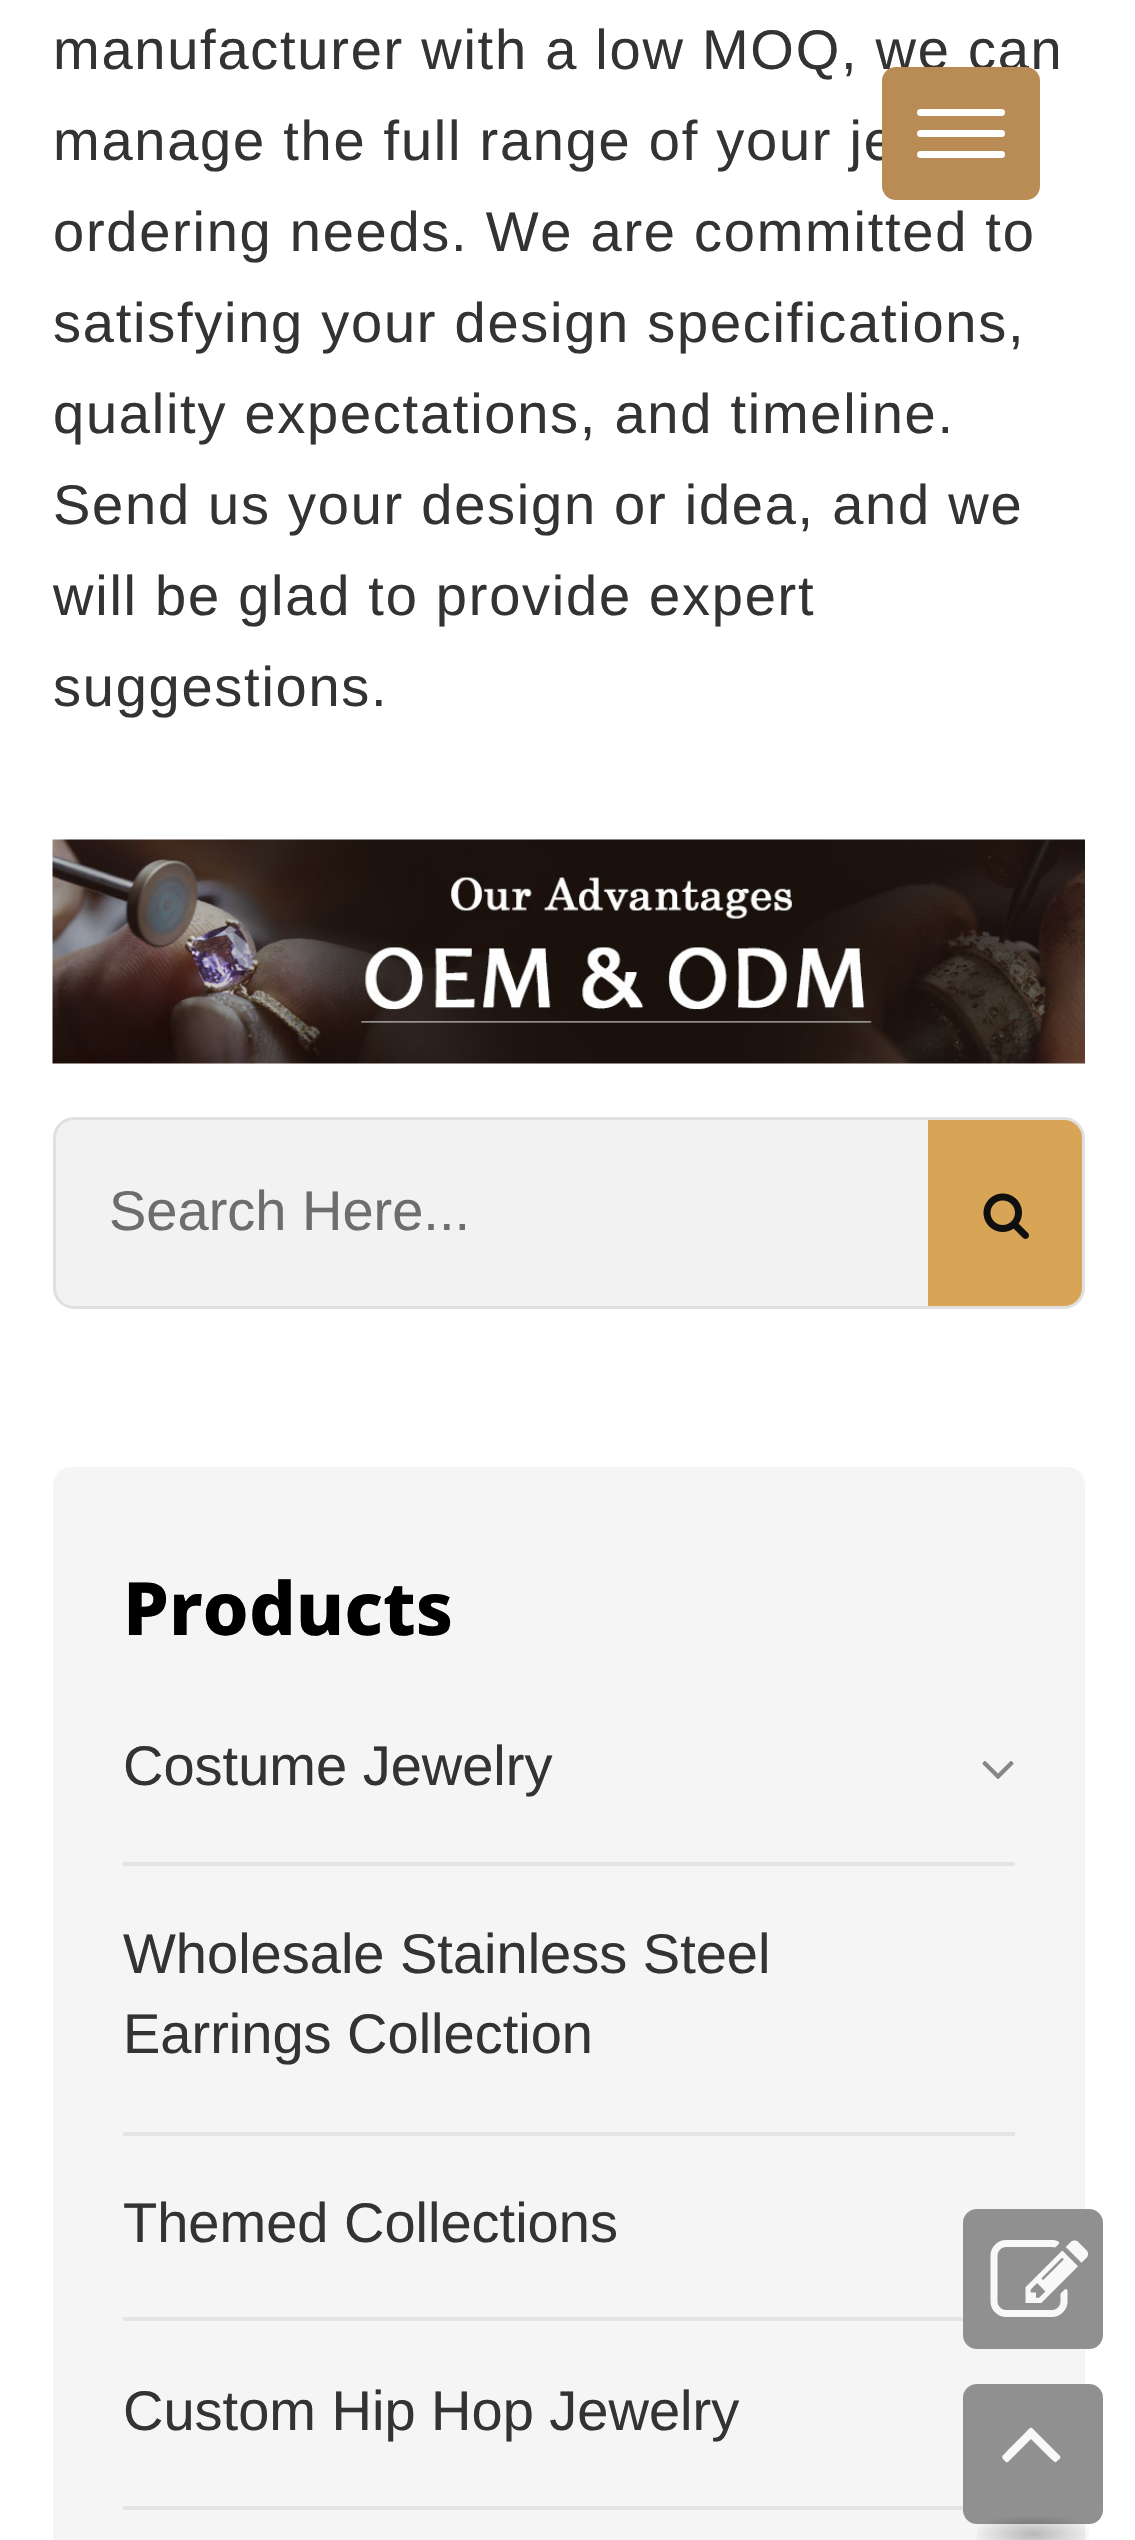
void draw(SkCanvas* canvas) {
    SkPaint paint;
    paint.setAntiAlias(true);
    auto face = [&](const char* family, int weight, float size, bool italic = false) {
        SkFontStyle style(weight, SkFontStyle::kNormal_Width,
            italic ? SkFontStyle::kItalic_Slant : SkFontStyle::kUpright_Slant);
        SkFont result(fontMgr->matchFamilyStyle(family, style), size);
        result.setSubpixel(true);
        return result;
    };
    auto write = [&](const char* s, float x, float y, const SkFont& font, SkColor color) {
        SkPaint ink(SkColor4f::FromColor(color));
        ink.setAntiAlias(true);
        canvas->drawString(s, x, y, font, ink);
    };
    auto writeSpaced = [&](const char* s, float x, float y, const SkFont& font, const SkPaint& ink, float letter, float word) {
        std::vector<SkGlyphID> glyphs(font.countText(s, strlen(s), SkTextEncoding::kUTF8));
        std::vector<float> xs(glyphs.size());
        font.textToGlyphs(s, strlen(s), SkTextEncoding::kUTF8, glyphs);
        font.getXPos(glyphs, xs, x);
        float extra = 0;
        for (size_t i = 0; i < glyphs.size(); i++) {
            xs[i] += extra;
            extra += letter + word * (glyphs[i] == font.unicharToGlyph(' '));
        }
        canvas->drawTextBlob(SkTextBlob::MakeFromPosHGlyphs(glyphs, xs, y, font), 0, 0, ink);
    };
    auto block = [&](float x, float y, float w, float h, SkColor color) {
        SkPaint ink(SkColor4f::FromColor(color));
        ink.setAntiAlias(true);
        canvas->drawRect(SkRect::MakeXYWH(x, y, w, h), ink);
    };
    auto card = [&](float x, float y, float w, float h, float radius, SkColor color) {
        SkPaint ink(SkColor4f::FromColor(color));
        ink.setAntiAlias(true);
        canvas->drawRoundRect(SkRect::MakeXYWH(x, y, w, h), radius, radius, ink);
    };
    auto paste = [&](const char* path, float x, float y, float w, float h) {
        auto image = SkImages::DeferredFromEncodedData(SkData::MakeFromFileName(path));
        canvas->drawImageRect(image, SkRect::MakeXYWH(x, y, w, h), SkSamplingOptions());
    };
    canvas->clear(SK_ColorWHITE);
    auto kFont1 = face("Liberation Sans", 400, 56);
    paint.setColor(SkColorSetRGB(51, 51, 51));
    writeSpaced("manufacturer with a low MOQ, we can", 53, 69, kFont1, paint, 1.75f, 0);
    writeSpaced("manage the full range of your je", 53, 160, kFont1, paint, 1.75f, 0);
    writeSpaced("ordering needs. We are committed to", 53, 251, kFont1, paint, 1.75f, 0);
    writeSpaced("satisfying your design specifications,", 53, 342, kFont1, paint, 1.75f, 0);
    writeSpaced("quality expectations, and timeline.", 53, 433, kFont1, paint, 1.75f, 0);
    writeSpaced("Send us your design or idea, and we", 53, 524, kFont1, paint, 1.75f, 0);
    writeSpaced("will be glad to provide expert", 53, 615, kFont1, paint, 1.75f, 0);
    writeSpaced("suggestions.", 53, 706, kFont1, paint, 1.75f, 0);
    paste("pic1.png", 52, 839, 1033, 225);
    paint.setStyle(SkPaint::kStroke_Style);
    paint.setStrokeWidth(4);
    paint.setColor(SkColorSetRGB(224, 224, 224));
    canvas->drawRoundRect(SkRect::MakeXYWH(55, 1119, 1028, 188), 19, 19, paint);
    paint.setStyle(SkPaint::kFill_Style);
    paint.setColor(SkColorSetRGB(242, 242, 242));
    canvas->drawPath(SkPathBuilder().moveTo(74, 1120).lineTo(928, 1120).lineTo(928, 1306).lineTo(74, 1306).cubicTo(64, 1306, 56, 1298, 56, 1288).lineTo(56, 1138).cubicTo(56, 1128, 64, 1120, 74, 1120).close().detach(), paint);
    write("Search Here...", 109, 1230, kFont1, SkColorSetRGB(109, 109, 109));
    paint.setColor(SkColorSetRGB(215, 165, 85));
    canvas->drawPath(SkPathBuilder().moveTo(928, 1120).lineTo(1064, 1120).cubicTo(1074, 1120, 1082, 1128, 1082, 1138).lineTo(1082, 1288).cubicTo(1082, 1298, 1074, 1306, 1064, 1306).lineTo(928, 1306).close().detach(), paint);
    paste("pic2.png", 983, 1193, 46, 46);
    card(53, 1467, 1032, 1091, 18, SkColorSetRGB(245, 245, 245));
    auto kFont2 = face("Noto Sans", 800, 73.5f);
    write("Products", 123, 1635, kFont2, SK_ColorBLACK);
    block(123, 1862, 892, 4, SkColorSetRGB(228, 228, 228));
    write("Costume Jewelry", 123, 1785, kFont1, SkColorSetRGB(51, 51, 51));
    paste("pic3.png", 982, 1761, 32, 18);
    block(123, 2132, 892, 4, SkColorSetRGB(228, 228, 228));
    write("Wholesale Stainless Steel", 123, 1973, kFont1, SkColorSetRGB(51, 51, 51));
    write("Earrings Collection", 123, 2053, kFont1, SkColorSetRGB(51, 51, 51));
    block(123, 2317, 840, 4, SkColorSetRGB(228, 228, 228));
    write("Themed Collections", 123, 2242, kFont1, SkColorSetRGB(51, 51, 51));
    block(123, 2506, 840, 4, SkColorSetRGB(228, 228, 228));
    write("Custom Hip Hop Jewelry", 123, 2430, kFont1, SkColorSetRGB(51, 51, 51));
    card(882, 67, 158, 133, 14, SkColorSetRGB(185, 140, 85));
    card(917, 109, 88, 7, 3.5f, SK_ColorWHITE);
    card(917, 130, 88, 7, 3.5f, SK_ColorWHITE);
    card(917, 151, 88, 7, 3.5f, SK_ColorWHITE);
    paint.setColor(SkColorSetRGB(144, 144, 144));
    canvas->drawRoundRect(SkRect::MakeXYWH(966.5f, 2212.5f, 133, 133), 10.5f, 10.5f, paint);
    paint.setStyle(SkPaint::kStroke_Style);
    paint.setStrokeWidth(7);
    canvas->drawRoundRect(SkRect::MakeXYWH(966.5f, 2212.5f, 133, 133), 10.5f, 10.5f, paint);
    paste("pic4.png", 990, 2240, 98, 77);
    paint.setStyle(SkPaint::kFill_Style);
    canvas->drawRoundRect(SkRect::MakeXYWH(966.5f, 2387.5f, 133, 133), 10.5f, 10.5f, paint);
    paint.setStyle(SkPaint::kStroke_Style);
    canvas->drawRoundRect(SkRect::MakeXYWH(966.5f, 2387.5f, 133, 133), 10.5f, 10.5f, paint);
    paint.setStyle(SkPaint::kFill_Style);
    paint.setColor(SkColorSetRGB(248, 248, 248));
    canvas->drawPath(SkPathBuilder().moveTo(1060, 2456).cubicTo(1061, 2458, 1060, 2459, 1058, 2460).cubicTo(1055, 2464, 1055, 2462, 1050, 2458).lineTo(1031, 2439).lineTo(1008, 2462).cubicTo(1006, 2463, 1005, 2461, 1004, 2460).cubicTo(1000, 2456, 1003, 2456, 1007, 2451).lineTo(1025, 2433).cubicTo(1032, 2426, 1030, 2426, 1037, 2433).close().detach(), paint);
    {
        const SkColor colors[] = {SkColorSetARGB(64, 0, 0, 0), SkColorSetARGB(0, 0, 0, 0)};
        const float stops[] = {0, 0.8f};
        SkMatrix m = SkMatrix::Translate(1033, 2534).preScale(79, 25);
        paint.setShader(SkGradientShader::MakeRadial({0, 0}, 1, colors, stops, 2, SkTileMode::kClamp, 0, &m));
        paint.setAlpha(255);
    }
    canvas->drawRect(SkRect::MakeXYWH(977, 2517, 112, 23), paint);
}
